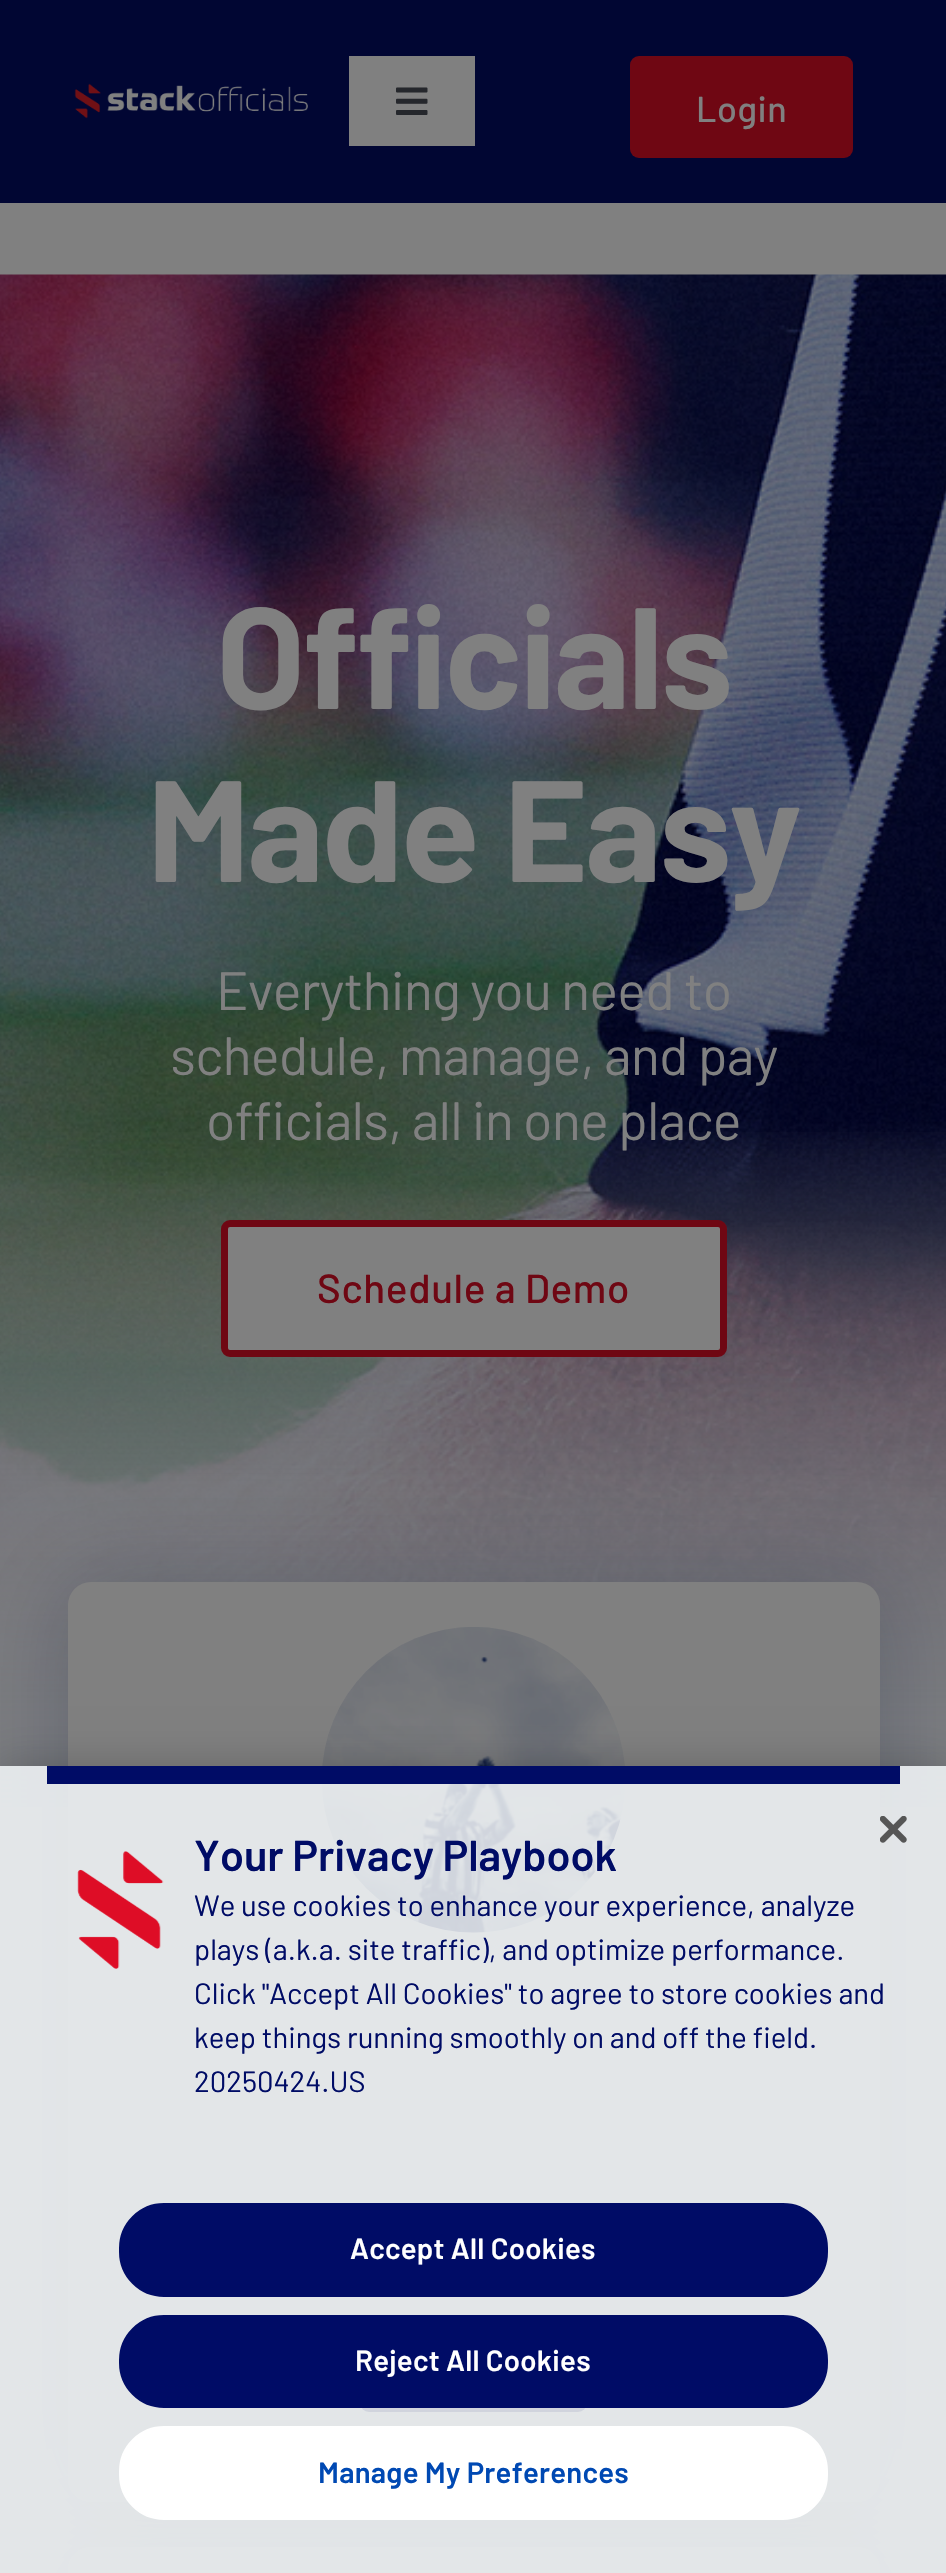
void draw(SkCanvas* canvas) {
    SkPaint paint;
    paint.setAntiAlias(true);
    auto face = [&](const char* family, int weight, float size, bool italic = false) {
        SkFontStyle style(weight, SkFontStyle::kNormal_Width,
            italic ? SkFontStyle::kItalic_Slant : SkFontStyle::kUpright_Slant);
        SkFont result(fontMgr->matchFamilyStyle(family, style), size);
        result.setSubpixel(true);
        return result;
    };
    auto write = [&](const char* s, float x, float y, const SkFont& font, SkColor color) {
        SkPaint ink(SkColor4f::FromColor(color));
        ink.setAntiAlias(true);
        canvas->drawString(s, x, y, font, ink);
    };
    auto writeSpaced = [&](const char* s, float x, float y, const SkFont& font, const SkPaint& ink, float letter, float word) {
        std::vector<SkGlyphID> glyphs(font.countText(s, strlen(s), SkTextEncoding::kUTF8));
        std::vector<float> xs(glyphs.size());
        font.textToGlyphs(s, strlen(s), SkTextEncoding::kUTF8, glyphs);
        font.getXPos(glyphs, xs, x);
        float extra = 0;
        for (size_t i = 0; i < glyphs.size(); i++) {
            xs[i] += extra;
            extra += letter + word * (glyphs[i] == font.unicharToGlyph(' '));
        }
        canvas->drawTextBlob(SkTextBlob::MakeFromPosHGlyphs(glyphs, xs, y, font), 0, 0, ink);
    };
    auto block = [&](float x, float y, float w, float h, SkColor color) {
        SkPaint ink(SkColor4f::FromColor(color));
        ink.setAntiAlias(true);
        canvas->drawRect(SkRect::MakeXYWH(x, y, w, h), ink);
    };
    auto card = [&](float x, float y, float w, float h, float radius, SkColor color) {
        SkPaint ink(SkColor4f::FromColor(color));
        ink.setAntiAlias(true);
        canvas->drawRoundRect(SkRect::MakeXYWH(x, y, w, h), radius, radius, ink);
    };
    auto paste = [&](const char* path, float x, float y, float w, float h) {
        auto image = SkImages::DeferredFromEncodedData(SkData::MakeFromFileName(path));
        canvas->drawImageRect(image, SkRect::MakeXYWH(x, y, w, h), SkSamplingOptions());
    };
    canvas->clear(SkColorSetRGB(128, 128, 128));
    block(0, 0, 946, 203, SkColorSetRGB(1, 6, 51));
    paste("pic1.png", 74, 83, 234, 36);
    block(349, 56, 126, 90, SkColorSetRGB(128, 128, 128));
    paste("pic2.png", 396, 87, 32, 28);
    card(630, 56, 223, 102, 9, SkColorSetRGB(111, 7, 19));
    auto kFont1 = face("Barlow", 500, 36);
    paint.setColor(SkColorSetRGB(128, 128, 128));
    writeSpaced("Login", 696, 122, kFont1, paint, 0.5f, 0);
    paste("pic3.png", 0, 274, 946, 1529);
    auto kFont2 = face("Barlow", 700, 144);
    writeSpaced("Officials", 216, 709, kFont2, paint, -2.25f, 0);
    writeSpaced("Made Easy", 147, 882, kFont2, paint, -2.25f, 0);
    auto kFont3 = face("Barlow", 400, 54);
    writeSpaced("Everything you need to", 216, 1010, kFont3, paint, -0.8f, 0);
    writeSpaced("schedule, manage, and pay", 170, 1075, kFont3, paint, -0.8f, 0);
    {
        const SkColor colors[] = {SkColorSetARGB(0, 122, 124, 128), SkColorSetRGB(122, 124, 128)};
        const float stops[] = {0.55f, 1};
        const SkPoint ends[] = {{474, 275}, {474, 1807}};
        paint.setShader(SkGradientShader::MakeLinear(ends, colors, stops, 2, SkTileMode::kClamp));
        paint.setAlpha(255);
    }
    canvas->drawRect(SkRect::MakeXYWH(0, 1132, 946, 675), paint);
    paint.setShader(nullptr);
    paint.setColor(SkColorSetRGB(128, 128, 128));
    writeSpaced("officials, all in one place", 206, 1140, kFont3, paint, -0.8f, 0);
    canvas->drawRoundRect(SkRect::MakeXYWH(224.5f, 1223.5f, 499, 130), 5.5f, 5.5f, paint);
    paint.setStyle(SkPaint::kStroke_Style);
    paint.setStrokeWidth(7);
    paint.setColor(SkColorSetRGB(111, 7, 19));
    canvas->drawRoundRect(SkRect::MakeXYWH(224.5f, 1223.5f, 499, 130), 5.5f, 5.5f, paint);
    auto kFont4 = face("Barlow", 500, 40.5f);
    paint.setStyle(SkPaint::kFill_Style);
    writeSpaced("Schedule a Demo", 317, 1303, kFont4, paint, 0.6f, 0);
    paint.setColor(SkColorSetARGB(51, 12, 17, 46));
    paint.setMaskFilter(SkMaskFilter::MakeBlur(kNormal_SkBlurStyle, 45));
    canvas->drawRoundRect(SkRect::MakeXYWH(68, 1582, 812, 920), 23, 23, paint);
    paint.setMaskFilter(nullptr);
    card(68, 1582, 812, 920, 23, SkColorSetRGB(128, 128, 128));
    paste("pic4.png", 322, 1627, 304, 306);
    card(360, 2340, 227, 72, 9, SkColorSetRGB(1, 6, 51));
    paint.setMaskFilter(SkMaskFilter::MakeBlur(kNormal_SkBlurStyle, 45));
    canvas->drawRoundRect(SkRect::MakeXYWH(68, 2547, 812, 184), 23, 23, paint);
    paint.setMaskFilter(nullptr);
    card(68, 2547, 812, 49, 23, SkColorSetRGB(128, 128, 128));
    canvas->save();
    canvas->clipPath(SkPathBuilder(SkPathFillType::kEvenOdd).moveTo(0, 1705).lineTo(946, 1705).lineTo(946, 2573).lineTo(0, 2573).close().moveTo(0, 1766).lineTo(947, 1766).lineTo(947, 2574).lineTo(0, 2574).close().detach(), true);
    paint.setColor(SkColorSetARGB(51, 0, 0, 0));
    paint.setMaskFilter(SkMaskFilter::MakeBlur(kNormal_SkBlurStyle, 20));
    canvas->drawRect(SkRect::MakeXYWH(0, 1766, 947, 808), paint);
    paint.setMaskFilter(nullptr);
    canvas->restore();
    block(0, 1766, 946, 807, SkColorSetARGB(217, 245, 248, 250));
    paste("pic5.png", 880, 1816, 27, 27);
    block(47, 1766, 853, 18, SkColorSetRGB(0, 12, 102));
    paste("pic6.png", 77, 1851, 87, 118);
    auto kFont5 = face("Barlow", 600, 43.25f);
    write("Your Privacy Playbook", 194, 1871, kFont5, SkColorSetRGB(0, 12, 102));
    auto kFont6 = face("Barlow", 400, 29.25f);
    write("We use cookies to enhance your experience, analyze", 194, 1916, kFont6, SkColorSetRGB(0, 12, 102));
    write("plays (a.k.a. site traffic), and optimize performance.", 194, 1960, kFont6, SkColorSetRGB(0, 12, 102));
    write("Click \"Accept All Cookies\" to agree to store cookies and", 194, 2004, kFont6, SkColorSetRGB(0, 12, 102));
    write("keep things running smoothly on and off the field.", 194, 2048, kFont6, SkColorSetRGB(0, 12, 102));
    write("20250424.US", 194, 2092, kFont6, SkColorSetRGB(0, 12, 102));
    paint.setColor(SkColorSetRGB(0, 12, 102));
    canvas->drawRoundRect(SkRect::MakeXYWH(120, 2204, 707, 92), 44, 44, paint);
    paint.setStyle(SkPaint::kStroke_Style);
    paint.setStrokeWidth(2);
    canvas->drawRoundRect(SkRect::MakeXYWH(120, 2204, 707, 92), 44, 44, paint);
    auto kFont7 = face("Barlow", 600, 29.25f);
    paint.setStyle(SkPaint::kFill_Style);
    paint.setColor(SK_ColorWHITE);
    writeSpaced("Accept All Cookies", 350, 2259, kFont7, paint, 0.25f, 0);
    paint.setColor(SkColorSetRGB(0, 12, 102));
    canvas->drawRoundRect(SkRect::MakeXYWH(120, 2316, 707, 91), 44, 44, paint);
    paint.setStyle(SkPaint::kStroke_Style);
    canvas->drawRoundRect(SkRect::MakeXYWH(120, 2316, 707, 91), 44, 44, paint);
    paint.setStyle(SkPaint::kFill_Style);
    paint.setColor(SK_ColorWHITE);
    writeSpaced("Reject All Cookies", 355, 2371, kFont7, paint, 0.25f, 0);
    canvas->drawRoundRect(SkRect::MakeXYWH(120, 2427, 707, 92), 44, 44, paint);
    paint.setStyle(SkPaint::kStroke_Style);
    canvas->drawRoundRect(SkRect::MakeXYWH(120, 2427, 707, 92), 44, 44, paint);
    paint.setStyle(SkPaint::kFill_Style);
    paint.setColor(SkColorSetRGB(0, 73, 179));
    writeSpaced("Manage My Preferences", 318, 2483, kFont7, paint, 0.25f, 0);
}
